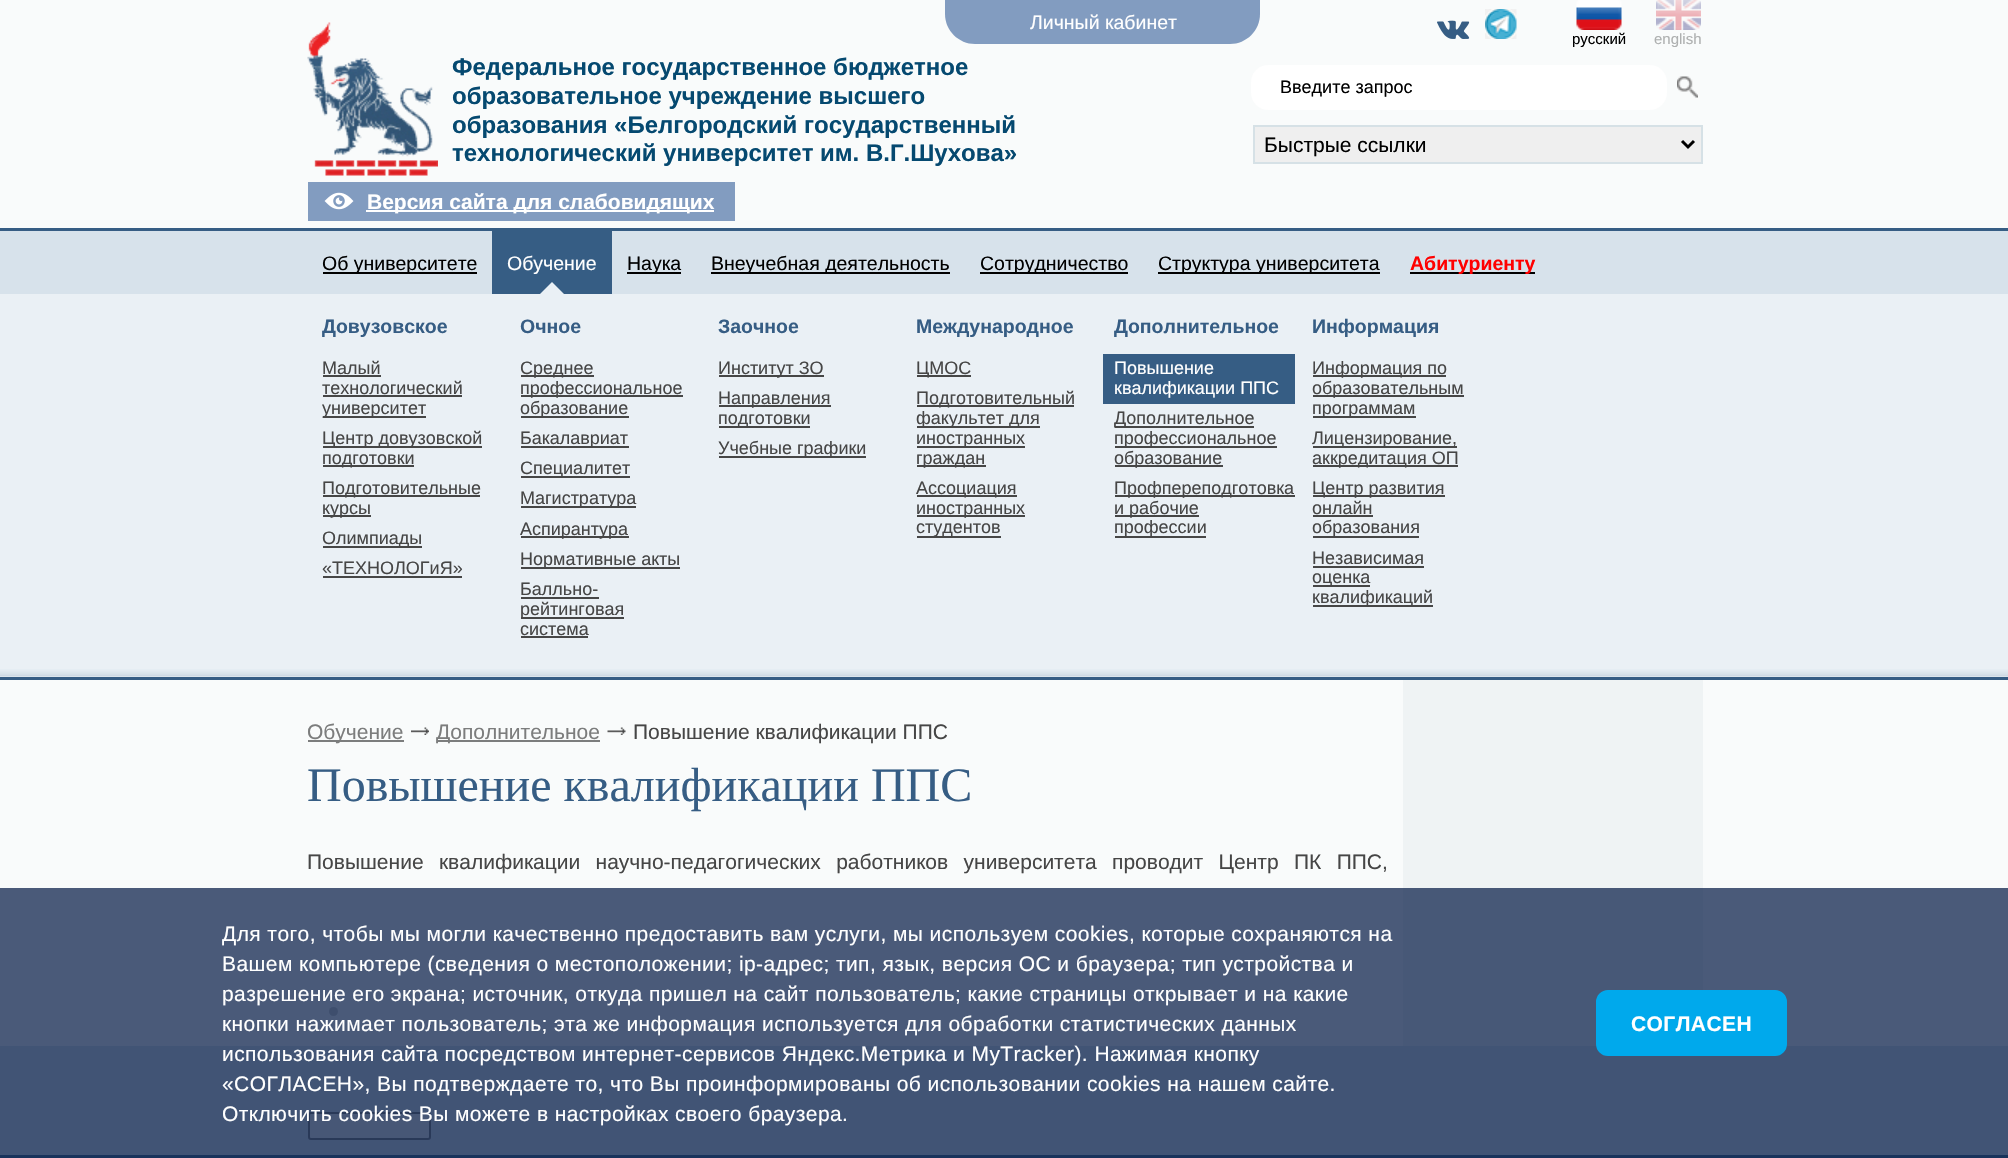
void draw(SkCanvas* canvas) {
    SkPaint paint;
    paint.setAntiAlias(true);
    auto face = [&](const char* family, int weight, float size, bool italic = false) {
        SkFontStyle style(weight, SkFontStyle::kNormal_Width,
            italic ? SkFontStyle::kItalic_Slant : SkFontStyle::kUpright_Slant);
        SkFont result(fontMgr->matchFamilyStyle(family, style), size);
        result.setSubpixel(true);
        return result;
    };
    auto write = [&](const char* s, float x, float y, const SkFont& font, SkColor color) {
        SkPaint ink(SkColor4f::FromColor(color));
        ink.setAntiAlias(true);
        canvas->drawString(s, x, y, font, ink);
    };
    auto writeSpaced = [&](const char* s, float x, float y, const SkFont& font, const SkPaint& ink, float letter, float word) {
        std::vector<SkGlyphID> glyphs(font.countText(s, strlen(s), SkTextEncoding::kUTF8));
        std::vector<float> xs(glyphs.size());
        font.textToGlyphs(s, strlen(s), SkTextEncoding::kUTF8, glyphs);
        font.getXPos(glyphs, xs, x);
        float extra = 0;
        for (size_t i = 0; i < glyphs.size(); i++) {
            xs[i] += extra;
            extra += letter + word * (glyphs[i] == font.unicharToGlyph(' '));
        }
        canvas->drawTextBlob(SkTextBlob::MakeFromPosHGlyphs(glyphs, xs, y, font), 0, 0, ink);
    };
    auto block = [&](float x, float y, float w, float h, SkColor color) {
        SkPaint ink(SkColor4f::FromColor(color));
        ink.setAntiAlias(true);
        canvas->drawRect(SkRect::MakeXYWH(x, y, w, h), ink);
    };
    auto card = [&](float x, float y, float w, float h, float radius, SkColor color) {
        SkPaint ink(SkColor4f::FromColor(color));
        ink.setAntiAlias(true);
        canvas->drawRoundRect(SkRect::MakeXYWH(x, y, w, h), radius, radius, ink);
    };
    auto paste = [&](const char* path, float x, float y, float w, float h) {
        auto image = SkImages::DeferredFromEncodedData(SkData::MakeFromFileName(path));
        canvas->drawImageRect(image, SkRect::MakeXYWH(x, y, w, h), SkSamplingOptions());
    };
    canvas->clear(SkColorSetRGB(249, 251, 251));
    paint.setColor(SkColorSetRGB(130, 156, 192));
    canvas->drawPath(SkPathBuilder().moveTo(945, 0).lineTo(1260, 0).lineTo(1260, 14).cubicTo(1260, 30.5f, 1246.5f, 44, 1230, 44).lineTo(975, 44).cubicTo(958.5f, 44, 945, 30.5f, 945, 14).close().detach(), paint);
    auto kFont1 = face("Liberation Sans", 400, 19.5f);
    write("Личный кабинет", 1030, 29, kFont1, SK_ColorWHITE);
    paste("pic1.png", 1437, 20, 33, 19);
    paste("pic2.png", 1485, 9, 32, 30);
    paste("pic3.png", 1576, 0, 46, 30);
    auto kFont2 = face("Liberation Sans", 400, 15);
    write("русский", 1572, 44, kFont2, SK_ColorBLACK);
    paste("pic4.png", 1656, 0, 45, 30);
    write("english", 1654, 44, kFont2, SkColorSetRGB(174, 176, 176));
    paste("pic5.png", 307, 22, 131, 154);
    auto kFont3 = face("Liberation Sans", 700, 24);
    write("Федеральное государственное бюджетное", 452, 75, kFont3, SkColorSetRGB(5, 73, 112));
    write("образовательное учреждение высшего", 452, 104, kFont3, SkColorSetRGB(5, 73, 112));
    write("образования «Белгородский государственный", 452, 133, kFont3, SkColorSetRGB(5, 73, 112));
    write("технологический университет им. В.Г.Шухова»", 452, 161, kFont3, SkColorSetRGB(5, 73, 112));
    card(1251, 65, 416, 45, 17, SK_ColorWHITE);
    auto kFont4 = face("Liberation Sans", 400, 18);
    write("Введите запрос", 1280, 93, kFont4, SK_ColorBLACK);
    paste("pic6.png", 1677, 76, 21, 22);
    paint.setColor(SkColorSetRGB(239, 239, 239));
    canvas->drawRect(SkRect::MakeXYWH(1254, 126, 448, 37), paint);
    paint.setStyle(SkPaint::kStroke_Style);
    paint.setStrokeWidth(2);
    paint.setColor(SkColorSetRGB(214, 225, 230));
    canvas->drawRect(SkRect::MakeXYWH(1254, 126, 448, 37), paint);
    paint.setStrokeWidth(3);
    paint.setColor(SK_ColorBLACK);
    canvas->drawPath(SkPathBuilder().moveTo(1682, 141).lineTo(1688, 147).lineTo(1694, 141).detach(), paint);
    auto kFont5 = face("Liberation Sans", 400, 21);
    write("Быстрые ссылки", 1264, 152, kFont5, SK_ColorBLACK);
    block(308, 182, 427, 39, SkColorSetRGB(130, 156, 192));
    paste("pic7.png", 324, 192, 30, 18);
    block(366, 210, 348, 2, SK_ColorWHITE);
    auto kFont6 = face("Liberation Sans", 700, 21);
    write("Версия сайта для слабовидящих", 367, 209, kFont6, SK_ColorWHITE);
    block(0, 294, 2008, 383, SkColorSetRGB(234, 240, 245));
    block(0, 228, 2008, 3, SkColorSetRGB(54, 93, 132));
    block(0, 677, 2008, 3, SkColorSetRGB(54, 93, 132));
    block(0, 231, 2008, 63, SkColorSetRGB(215, 226, 235));
    block(323, 272, 154, 2, SK_ColorBLACK);
    write("Об университете", 322, 270, kFont1, SK_ColorBLACK);
    block(492, 231, 120, 63, SkColorSetRGB(54, 93, 132));
    write("Обучение", 507, 270, kFont1, SK_ColorWHITE);
    paint.setStyle(SkPaint::kFill_Style);
    paint.setColor(SkColorSetRGB(234, 240, 245));
    canvas->drawPath(SkPathBuilder().moveTo(564, 294).lineTo(540, 294).lineTo(552, 282).close().detach(), paint);
    block(627, 272, 54, 2, SK_ColorBLACK);
    write("Наука", 627, 270, kFont1, SK_ColorBLACK);
    block(711, 272, 239, 2, SK_ColorBLACK);
    write("Внеучебная деятельность", 711, 270, kFont1, SK_ColorBLACK);
    block(980, 272, 148, 2, SK_ColorBLACK);
    write("Сотрудничество", 980, 270, kFont1, SK_ColorBLACK);
    block(1158, 272, 222, 2, SK_ColorBLACK);
    write("Структура университета", 1158, 270, kFont1, SK_ColorBLACK);
    block(1410, 272, 125, 2, SK_ColorBLACK);
    auto kFont7 = face("Liberation Sans", 700, 19.5f);
    write("Абитуриенту", 1410, 270, kFont7, SkColorSetRGB(255, 0, 0));
    write("Довузовское", 322, 333, kFont7, SkColorSetRGB(54, 93, 132));
    write("Малый", 322, 374, kFont4, SkColorSetRGB(70, 70, 70));
    block(323, 375, 58, 2, SkColorSetRGB(70, 70, 70));
    write("технологический", 322, 394, kFont4, SkColorSetRGB(70, 70, 70));
    block(323, 395, 139, 2, SkColorSetRGB(70, 70, 70));
    block(323, 416, 103, 2, SkColorSetRGB(70, 70, 70));
    write("университет", 322, 414, kFont4, SkColorSetRGB(70, 70, 70));
    block(323, 446, 159, 2, SkColorSetRGB(70, 70, 70));
    write("Центр довузовской", 322, 444, kFont4, SkColorSetRGB(70, 70, 70));
    block(323, 465, 91, 2, SkColorSetRGB(70, 70, 70));
    write("подготовки", 322, 464, kFont4, SkColorSetRGB(70, 70, 70));
    block(323, 495, 157, 2, SkColorSetRGB(70, 70, 70));
    write("Подготовительные", 322, 494, kFont4, SkColorSetRGB(70, 70, 70));
    block(323, 515, 48, 2, SkColorSetRGB(70, 70, 70));
    write("курсы", 322, 514, kFont4, SkColorSetRGB(70, 70, 70));
    block(323, 546, 99, 2, SkColorSetRGB(70, 70, 70));
    write("Олимпиады", 322, 544, kFont4, SkColorSetRGB(70, 70, 70));
    write("«ТЕХНОЛОГиЯ»", 322, 574, kFont4, SkColorSetRGB(70, 70, 70));
    block(323, 576, 139, 2, SkColorSetRGB(70, 70, 70));
    write("Очное", 520, 333, kFont7, SkColorSetRGB(54, 93, 132));
    block(521, 375, 73, 2, SkColorSetRGB(70, 70, 70));
    write("Среднее", 520, 374, kFont4, SkColorSetRGB(70, 70, 70));
    block(521, 395, 162, 2, SkColorSetRGB(70, 70, 70));
    write("профессиональное", 520, 394, kFont4, SkColorSetRGB(70, 70, 70));
    block(521, 416, 108, 2, SkColorSetRGB(70, 70, 70));
    write("образование", 520, 414, kFont4, SkColorSetRGB(70, 70, 70));
    block(521, 446, 108, 2, SkColorSetRGB(70, 70, 70));
    write("Бакалавриат", 520, 444, kFont4, SkColorSetRGB(70, 70, 70));
    block(521, 476, 109, 2, SkColorSetRGB(70, 70, 70));
    write("Специалитет", 520, 474, kFont4, SkColorSetRGB(70, 70, 70));
    block(521, 506, 115, 2, SkColorSetRGB(70, 70, 70));
    write("Магистратура", 520, 504, kFont4, SkColorSetRGB(70, 70, 70));
    block(521, 536, 108, 2, SkColorSetRGB(70, 70, 70));
    write("Аспирантура", 520, 535, kFont4, SkColorSetRGB(70, 70, 70));
    block(521, 567, 159, 2, SkColorSetRGB(70, 70, 70));
    write("Нормативные акты", 520, 565, kFont4, SkColorSetRGB(70, 70, 70));
    write("Балльно-", 520, 595, kFont4, SkColorSetRGB(70, 70, 70));
    block(521, 597, 78, 2, SkColorSetRGB(70, 70, 70));
    block(521, 617, 103, 2, SkColorSetRGB(70, 70, 70));
    write("рейтинговая", 520, 615, kFont4, SkColorSetRGB(70, 70, 70));
    write("система", 520, 635, kFont4, SkColorSetRGB(70, 70, 70));
    block(521, 636, 67, 2, SkColorSetRGB(70, 70, 70));
    write("Заочное", 718, 333, kFont7, SkColorSetRGB(54, 93, 132));
    block(719, 375, 105, 2, SkColorSetRGB(70, 70, 70));
    write("Институт ЗО", 718, 374, kFont4, SkColorSetRGB(70, 70, 70));
    block(719, 405, 112, 2, SkColorSetRGB(70, 70, 70));
    write("Направления", 718, 404, kFont4, SkColorSetRGB(70, 70, 70));
    block(719, 426, 91, 2, SkColorSetRGB(70, 70, 70));
    write("подготовки", 718, 424, kFont4, SkColorSetRGB(70, 70, 70));
    block(719, 456, 147, 2, SkColorSetRGB(70, 70, 70));
    write("Учебные графики", 718, 454, kFont4, SkColorSetRGB(70, 70, 70));
    write("Международное", 916, 333, kFont7, SkColorSetRGB(54, 93, 132));
    block(917, 375, 54, 2, SkColorSetRGB(70, 70, 70));
    write("ЦМОС", 916, 374, kFont4, SkColorSetRGB(70, 70, 70));
    block(917, 405, 157, 2, SkColorSetRGB(70, 70, 70));
    write("Подготовительный", 916, 404, kFont4, SkColorSetRGB(70, 70, 70));
    block(917, 426, 123, 2, SkColorSetRGB(70, 70, 70));
    write("факультет для", 916, 424, kFont4, SkColorSetRGB(70, 70, 70));
    block(917, 446, 108, 2, SkColorSetRGB(70, 70, 70));
    write("иностранных", 916, 444, kFont4, SkColorSetRGB(70, 70, 70));
    block(917, 465, 69, 2, SkColorSetRGB(70, 70, 70));
    write("граждан", 916, 464, kFont4, SkColorSetRGB(70, 70, 70));
    block(917, 495, 100, 2, SkColorSetRGB(70, 70, 70));
    write("Ассоциация", 916, 494, kFont4, SkColorSetRGB(70, 70, 70));
    block(917, 515, 108, 2, SkColorSetRGB(70, 70, 70));
    write("иностранных", 916, 514, kFont4, SkColorSetRGB(70, 70, 70));
    block(917, 536, 84, 2, SkColorSetRGB(70, 70, 70));
    write("студентов", 916, 533, kFont4, SkColorSetRGB(70, 70, 70));
    write("Дополнительное", 1114, 333, kFont7, SkColorSetRGB(54, 93, 132));
    block(1103, 354, 192, 50, SkColorSetRGB(54, 93, 132));
    write("Повышение", 1114, 374, kFont4, SK_ColorWHITE);
    write("квалификации ППС", 1114, 394, kFont4, SK_ColorWHITE);
    block(1115, 426, 139, 2, SkColorSetRGB(70, 70, 70));
    write("Дополнительное", 1114, 424, kFont4, SkColorSetRGB(70, 70, 70));
    block(1115, 446, 162, 2, SkColorSetRGB(70, 70, 70));
    write("профессиональное", 1114, 444, kFont4, SkColorSetRGB(70, 70, 70));
    block(1115, 465, 108, 2, SkColorSetRGB(70, 70, 70));
    write("образование", 1114, 464, kFont4, SkColorSetRGB(70, 70, 70));
    block(1115, 495, 180, 2, SkColorSetRGB(70, 70, 70));
    write("Профпереподготовка", 1114, 494, kFont4, SkColorSetRGB(70, 70, 70));
    block(1115, 515, 84, 2, SkColorSetRGB(70, 70, 70));
    write("и рабочие", 1114, 514, kFont4, SkColorSetRGB(70, 70, 70));
    block(1115, 536, 91, 2, SkColorSetRGB(70, 70, 70));
    write("профессии", 1114, 533, kFont4, SkColorSetRGB(70, 70, 70));
    write("Информация", 1312, 333, kFont7, SkColorSetRGB(54, 93, 132));
    block(1313, 375, 133, 2, SkColorSetRGB(70, 70, 70));
    write("Информация по", 1312, 374, kFont4, SkColorSetRGB(70, 70, 70));
    block(1313, 395, 151, 2, SkColorSetRGB(70, 70, 70));
    write("образовательным", 1312, 394, kFont4, SkColorSetRGB(70, 70, 70));
    block(1313, 416, 103, 2, SkColorSetRGB(70, 70, 70));
    write("программам", 1312, 414, kFont4, SkColorSetRGB(70, 70, 70));
    block(1313, 446, 144, 2, SkColorSetRGB(70, 70, 70));
    write("Лицензирование,", 1312, 444, kFont4, SkColorSetRGB(70, 70, 70));
    block(1313, 465, 145, 2, SkColorSetRGB(70, 70, 70));
    write("аккредитация ОП", 1312, 464, kFont4, SkColorSetRGB(70, 70, 70));
    block(1313, 495, 132, 2, SkColorSetRGB(70, 70, 70));
    write("Центр развития", 1312, 494, kFont4, SkColorSetRGB(70, 70, 70));
    write("онлайн", 1312, 514, kFont4, SkColorSetRGB(70, 70, 70));
    block(1313, 515, 60, 2, SkColorSetRGB(70, 70, 70));
    block(1313, 536, 106, 2, SkColorSetRGB(70, 70, 70));
    write("образования", 1312, 533, kFont4, SkColorSetRGB(70, 70, 70));
    write("Независимая", 1312, 564, kFont4, SkColorSetRGB(70, 70, 70));
    block(1313, 566, 111, 2, SkColorSetRGB(70, 70, 70));
    block(1313, 585, 57, 2, SkColorSetRGB(70, 70, 70));
    write("оценка", 1312, 583, kFont4, SkColorSetRGB(70, 70, 70));
    block(1313, 605, 120, 2, SkColorSetRGB(70, 70, 70));
    write("квалификаций", 1312, 603, kFont4, SkColorSetRGB(70, 70, 70));
    paste("pic8.png", 0, 669, 2008, 8);
    block(308, 740, 96, 2, SkColorSetRGB(124, 125, 125));
    write("Обучение", 307, 739, kFont5, SkColorSetRGB(124, 125, 125));
    paste("pic9.png", 411, 727, 18, 8);
    block(437, 740, 163, 2, SkColorSetRGB(124, 125, 125));
    write("Дополнительное", 436, 739, kFont5, SkColorSetRGB(124, 125, 125));
    paste("pic10.png", 607, 727, 19, 8);
    write("Повышение квалификации ППС", 633, 739, kFont5, SkColorSetRGB(70, 70, 70));
    auto kFont8 = face("Liberation Serif", 400, 48);
    write("Повышение квалификации ППС", 307, 801, kFont8, SkColorSetRGB(54, 93, 132));
    paint.setColor(SkColorSetRGB(70, 70, 70));
    writeSpaced("Повышение квалификации научно-педагогических работников университета проводит Центр ПК ППС,", 307, 869, kFont5, paint, 0, 9.5f);
    paint.setColor(SkColorSetRGB(204, 204, 204));
    canvas->drawCircle(333.5f, 1011.5f, 4.5f, paint);
    block(1403, 680, 300, 366, SkColorSetRGB(239, 243, 244));
    block(0, 1046, 2008, 109, SkColorSetRGB(215, 226, 235));
    block(0, 1155, 2008, 3, SkColorSetRGB(54, 93, 132));
    paint.setColor(SkColorSetRGB(239, 239, 239));
    canvas->drawRoundRect(SkRect::MakeXYWH(309, 1113, 121, 26), 2, 2, paint);
    paint.setStyle(SkPaint::kStroke_Style);
    paint.setStrokeWidth(2);
    paint.setColor(SkColorSetRGB(118, 118, 118));
    canvas->drawRoundRect(SkRect::MakeXYWH(309, 1113, 121, 26), 2, 2, paint);
    block(0, 888, 2008, 270, SkColorSetARGB(191, 15, 36, 77));
    paint.setStyle(SkPaint::kFill_Style);
    paint.setColor(SK_ColorWHITE);
    writeSpaced("Для того, чтобы мы могли качественно предоставить вам услуги, мы используем cookies, которые сохраняются на", 222, 941, kFont5, paint, 0.42f, 0);
    writeSpaced("Вашем компьютере (сведения о местоположении; ip-адрес; тип, язык, версия ОС и браузера; тип устройства и", 222, 971, kFont5, paint, 0.42f, 0);
    writeSpaced("разрешение его экрана; источник, откуда пришел на сайт пользователь; какие страницы открывает и на какие", 222, 1001, kFont5, paint, 0.42f, 0);
    writeSpaced("кнопки нажимает пользователь; эта же информация используется для обработки статистических данных", 222, 1031, kFont5, paint, 0.42f, 0);
    writeSpaced("использования сайта посредством интернет-сервисов Яндекс.Метрика и MyTracker). Нажимая кнопку", 222, 1061, kFont5, paint, 0.42f, 0);
    writeSpaced("«СОГЛАСЕН», Вы подтверждаете то, что Вы проинформированы об использовании cookies на нашем сайте.", 222, 1091, kFont5, paint, 0.42f, 0);
    writeSpaced("Отключить cookies Вы можете в настройках своего браузера.", 222, 1121, kFont5, paint, 0.42f, 0);
    paint.setColor(SkColorSetRGB(0, 169, 236));
    canvas->drawRoundRect(SkRect::MakeXYWH(1597, 991, 189, 64), 11, 11, paint);
    paint.setStyle(SkPaint::kStroke_Style);
    canvas->drawRoundRect(SkRect::MakeXYWH(1597, 991, 189, 64), 11, 11, paint);
    paint.setStyle(SkPaint::kFill_Style);
    paint.setColor(SK_ColorWHITE);
    writeSpaced("СОГЛАСЕН", 1631, 1031, kFont6, paint, 0.42f, 0);
}
